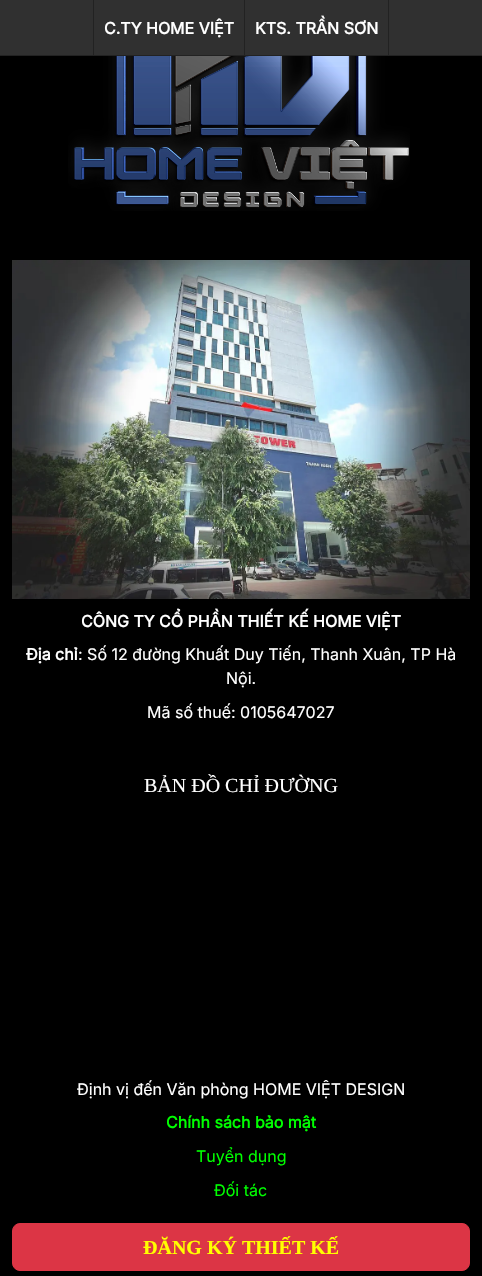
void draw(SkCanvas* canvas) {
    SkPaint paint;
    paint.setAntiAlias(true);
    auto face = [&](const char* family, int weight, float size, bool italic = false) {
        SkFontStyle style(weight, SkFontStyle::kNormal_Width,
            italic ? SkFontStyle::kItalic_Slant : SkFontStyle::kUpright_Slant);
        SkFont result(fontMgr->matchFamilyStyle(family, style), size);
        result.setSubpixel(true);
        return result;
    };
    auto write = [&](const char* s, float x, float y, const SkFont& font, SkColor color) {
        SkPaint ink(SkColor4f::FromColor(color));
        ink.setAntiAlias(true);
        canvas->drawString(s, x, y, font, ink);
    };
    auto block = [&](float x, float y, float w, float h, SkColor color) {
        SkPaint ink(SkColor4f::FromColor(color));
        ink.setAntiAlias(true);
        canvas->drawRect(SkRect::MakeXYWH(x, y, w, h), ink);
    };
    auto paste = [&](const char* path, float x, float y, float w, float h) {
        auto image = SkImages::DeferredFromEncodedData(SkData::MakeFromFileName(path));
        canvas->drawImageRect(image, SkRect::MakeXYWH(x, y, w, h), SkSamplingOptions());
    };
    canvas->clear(SK_ColorBLACK);
    block(0, 0, 482, 55, SkColorSetRGB(48, 48, 48));
    block(0, 55, 482, 1, SkColorSetRGB(34, 34, 34));
    block(93, 0, 1, 55, SkColorSetRGB(34, 34, 34));
    auto kFont1 = face("Inter", 700, 16);
    write("C.TY HOME VIỆT", 104, 34, kFont1, SK_ColorWHITE);
    block(388, 0, 1, 55, SkColorSetRGB(34, 34, 34));
    block(244, 0, 1, 55, SkColorSetRGB(34, 34, 34));
    write("KTS. TRẦN SƠN", 255, 34, kFont1, SK_ColorWHITE);
    paste("pic1.png", 68, 56, 342, 155);
    paste("pic2.png", 12, 260, 458, 339);
    write("CÔNG TY CỔ PHẦN THIẾT KẾ HOME VIỆT", 81, 627, kFont1, SK_ColorWHITE);
    write("Địa chỉ", 26, 660, kFont1, SK_ColorWHITE);
    auto kFont2 = face("Inter", 400, 16);
    write(": Số 12 đường Khuất Duy Tiến, Thanh Xuân, TP Hà", 78, 660, kFont2, SK_ColorWHITE);
    write("Nội.", 226, 684, kFont2, SK_ColorWHITE);
    write("Mã số thuế: 0105647027", 147, 718, kFont2, SK_ColorWHITE);
    auto kFont3 = face("Liberation Serif", 400, 20);
    write("BẢN ĐỒ CHỈ ĐƯỜNG", 144, 792, kFont3, SK_ColorWHITE);
    write("Định vị đến Văn phòng HOME VIỆT DESIGN", 77, 1095, kFont2, SK_ColorWHITE);
    write("Chính sách bảo mật", 166, 1128, kFont1, SkColorSetRGB(0, 255, 0));
    write("Tuyển dụng", 196, 1162, kFont2, SkColorSetRGB(0, 255, 0));
    write("Đối tác", 214, 1196, kFont2, SkColorSetRGB(0, 255, 0));
    paint.setColor(SkColorSetRGB(220, 53, 69));
    canvas->drawRoundRect(SkRect::MakeXYWH(12.5f, 1223.5f, 457, 47), 7.5f, 7.5f, paint);
    paint.setStyle(SkPaint::kStroke_Style);
    paint.setStrokeWidth(1);
    canvas->drawRoundRect(SkRect::MakeXYWH(12.5f, 1223.5f, 457, 47), 7.5f, 7.5f, paint);
    auto kFont4 = face("Liberation Serif", 700, 20);
    write("ĐĂNG KÝ THIẾT KẾ", 143, 1254, kFont4, SkColorSetRGB(255, 255, 0));
}
